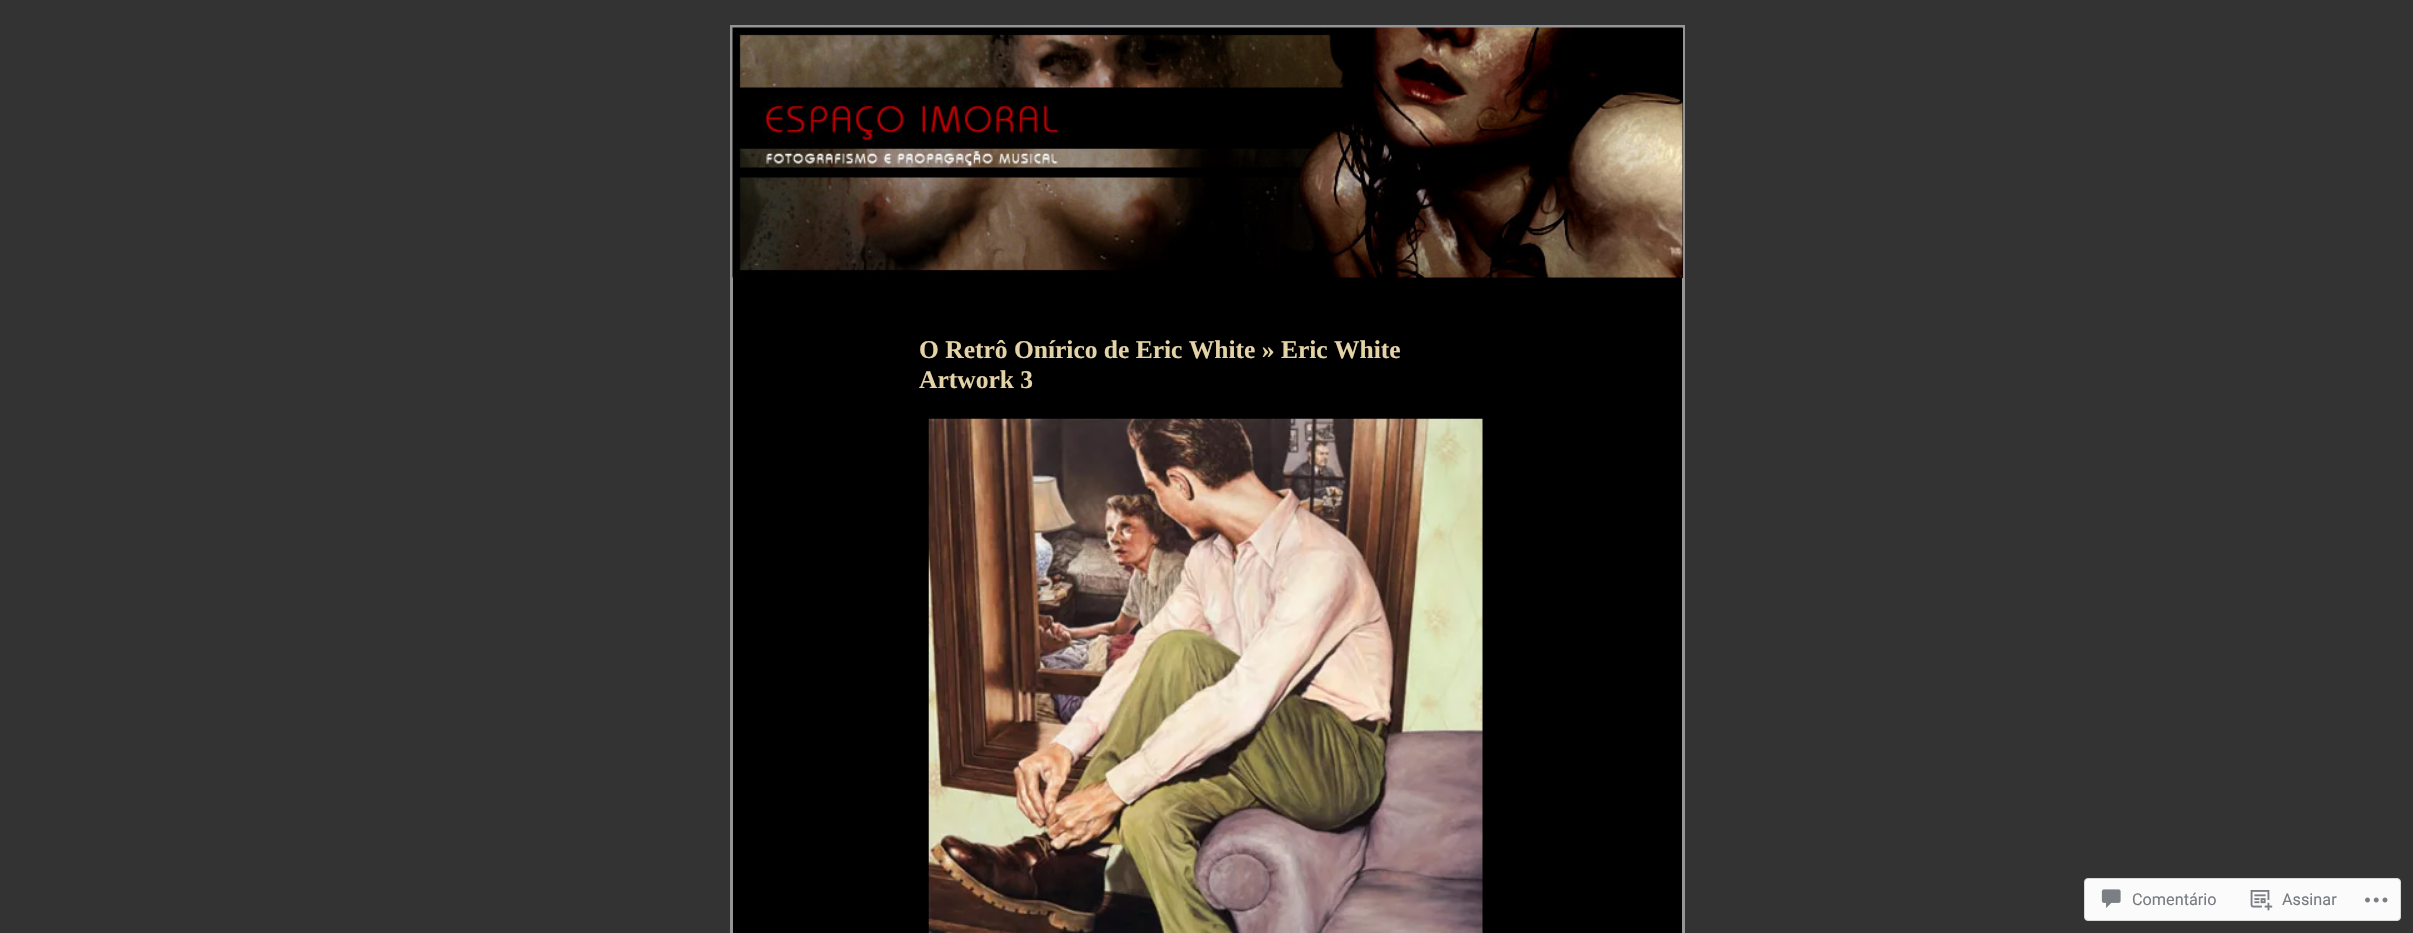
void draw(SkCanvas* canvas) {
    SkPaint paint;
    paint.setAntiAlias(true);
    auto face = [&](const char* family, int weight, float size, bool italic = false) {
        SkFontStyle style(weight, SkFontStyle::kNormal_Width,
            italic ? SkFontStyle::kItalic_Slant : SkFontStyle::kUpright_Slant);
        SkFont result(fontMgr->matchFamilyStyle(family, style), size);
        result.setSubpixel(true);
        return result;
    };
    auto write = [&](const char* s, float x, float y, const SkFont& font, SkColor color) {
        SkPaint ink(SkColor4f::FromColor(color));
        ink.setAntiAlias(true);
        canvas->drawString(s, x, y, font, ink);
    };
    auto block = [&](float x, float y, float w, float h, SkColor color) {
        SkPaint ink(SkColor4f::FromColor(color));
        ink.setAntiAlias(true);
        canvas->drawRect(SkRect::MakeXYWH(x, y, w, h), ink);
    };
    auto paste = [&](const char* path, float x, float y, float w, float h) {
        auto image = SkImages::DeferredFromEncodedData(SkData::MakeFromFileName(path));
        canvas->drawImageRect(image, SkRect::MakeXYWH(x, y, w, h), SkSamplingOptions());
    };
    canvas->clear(SkColorSetRGB(51, 51, 51));
    block(733, 278, 949, 655, SK_ColorBLACK);
    paint.setStyle(SkPaint::kStroke_Style);
    paint.setStrokeWidth(3);
    paint.setColor(SkColorSetRGB(149, 149, 150));
    canvas->drawRect(SkRect::MakeXYWH(731.5f, 26.5f, 952, 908), paint);
    block(733, 28, 950, 250, SK_ColorBLACK);
    paste("pic1.png", 732, 27, 951, 251);
    auto kFont1 = face("Liberation Serif", 700, 25.5f);
    write("O Retrô Onírico de Eric White » Eric White", 919, 358, kFont1, SkColorSetRGB(228, 211, 166));
    write("Artwork 3", 919, 388, kFont1, SkColorSetRGB(228, 211, 166));
    paste("pic2.png", 928, 418, 555, 515);
    paint.setStyle(SkPaint::kFill_Style);
    paint.setColor(SkColorSetRGB(251, 251, 251));
    canvas->drawRoundRect(SkRect::MakeXYWH(2084.5f, 878.5f, 316, 42), 3.5f, 3.5f, paint);
    paint.setStyle(SkPaint::kStroke_Style);
    paint.setStrokeWidth(1);
    paint.setColor(SkColorSetRGB(217, 217, 219));
    canvas->drawRoundRect(SkRect::MakeXYWH(2084.5f, 878.5f, 316, 42), 3.5f, 3.5f, paint);
    paste("pic3.png", 2101, 889, 20, 19);
    auto kFont2 = face("Roboto", 400, 16.25f);
    write("Comentário", 2132, 905, kFont2, SkColorSetRGB(119, 123, 128));
    paste("pic4.png", 2250, 890, 23, 21);
    write("Assinar", 2282, 905, kFont2, SkColorSetRGB(119, 123, 128));
    paste("pic5.png", 2365, 897, 23, 6);
}
